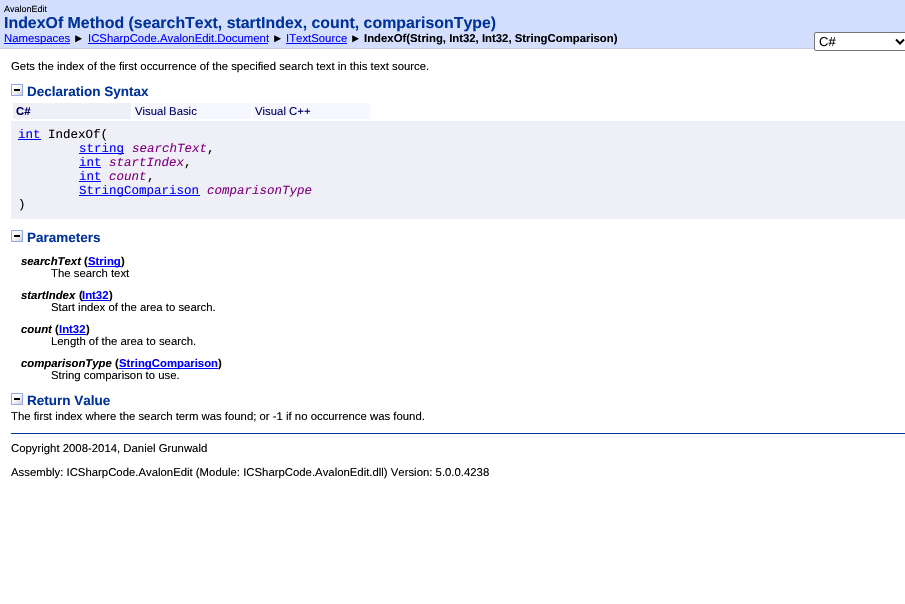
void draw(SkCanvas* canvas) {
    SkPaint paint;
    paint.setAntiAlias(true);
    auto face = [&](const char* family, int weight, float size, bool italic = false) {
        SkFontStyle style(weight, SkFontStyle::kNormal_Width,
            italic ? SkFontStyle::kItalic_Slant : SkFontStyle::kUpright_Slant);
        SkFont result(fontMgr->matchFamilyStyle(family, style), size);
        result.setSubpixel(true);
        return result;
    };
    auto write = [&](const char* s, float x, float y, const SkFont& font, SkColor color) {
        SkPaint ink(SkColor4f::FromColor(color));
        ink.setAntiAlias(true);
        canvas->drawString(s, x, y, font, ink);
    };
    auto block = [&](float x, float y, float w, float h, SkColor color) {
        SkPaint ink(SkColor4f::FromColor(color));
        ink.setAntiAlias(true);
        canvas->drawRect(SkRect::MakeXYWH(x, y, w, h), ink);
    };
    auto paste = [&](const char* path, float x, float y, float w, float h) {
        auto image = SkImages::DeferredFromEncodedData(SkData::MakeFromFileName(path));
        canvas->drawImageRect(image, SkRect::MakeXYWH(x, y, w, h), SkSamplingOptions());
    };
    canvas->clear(SK_ColorWHITE);
    block(0, 0, 905, 48, SkColorSetRGB(212, 223, 255));
    block(0, 48, 814, 1, SkColorSetRGB(200, 205, 222));
    auto kFont1 = face("Liberation Sans", 400, 9);
    write("AvalonEdit", 4, 12, kFont1, SK_ColorBLACK);
    auto kFont2 = face("Liberation Sans", 700, 15.9f);
    write("IndexOf Method (searchText, startIndex, count, comparisonType)", 4, 28, kFont2, SkColorSetRGB(0, 51, 153));
    block(4, 43, 66, 1, SkColorSetRGB(0, 0, 255));
    auto kFont3 = face("Liberation Sans", 400, 11.35f);
    write("Namespaces", 4, 42, kFont3, SkColorSetRGB(0, 0, 255));
    write("►", 73, 42, kFont3, SK_ColorBLACK);
    block(88, 43, 180, 1, SkColorSetRGB(0, 0, 255));
    write("ICSharpCode.AvalonEdit.Document", 88, 42, kFont3, SkColorSetRGB(0, 0, 255));
    write("►", 272, 42, kFont3, SK_ColorBLACK);
    write("ITextSource", 286, 42, kFont3, SkColorSetRGB(0, 0, 255));
    block(286, 43, 61, 1, SkColorSetRGB(0, 0, 255));
    write("►", 350, 42, kFont3, SK_ColorBLACK);
    auto kFont4 = face("Liberation Sans", 700, 11.35f);
    write("IndexOf(String, Int32, Int32, StringComparison)", 364, 42, kFont4, SK_ColorBLACK);
    paint.setColor(SK_ColorWHITE);
    canvas->drawRoundRect(SkRect::MakeXYWH(814.5f, 32.5f, 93, 18), 1.5f, 1.5f, paint);
    paint.setStyle(SkPaint::kStroke_Style);
    paint.setStrokeWidth(1);
    paint.setColor(SkColorSetRGB(118, 118, 118));
    canvas->drawRoundRect(SkRect::MakeXYWH(814.5f, 32.5f, 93, 18), 1.5f, 1.5f, paint);
    paint.setStrokeWidth(2);
    paint.setColor(SK_ColorBLACK);
    canvas->drawPath(SkPathBuilder().moveTo(896, 39.5f).lineTo(900, 43.5f).lineTo(904, 39.5f).detach(), paint);
    auto kFont5 = face("Liberation Sans", 400, 13);
    write("C#", 819, 46, kFont5, SK_ColorBLACK);
    write("Gets the index of the first occurrence of the specified search text in this text source.", 11, 70, kFont3, SK_ColorBLACK);
    paste("pic1.png", 11, 84, 12, 12);
    auto kFont6 = face("Liberation Sans", 700, 13.5f);
    write("Declaration Syntax", 27, 96, kFont6, SkColorSetRGB(0, 51, 153));
    block(13, 103, 118, 16, SkColorSetRGB(239, 239, 247));
    write("C#", 16, 115, kFont4, SkColorSetRGB(0, 0, 102));
    block(133, 103, 118, 16, SkColorSetRGB(247, 247, 255));
    write("Visual Basic", 135, 115, kFont3, SkColorSetRGB(0, 0, 102));
    block(253, 103, 118, 16, SkColorSetRGB(247, 247, 255));
    write("Visual C++", 255, 115, kFont3, SkColorSetRGB(0, 0, 102));
    block(11, 121, 894, 98, SkColorSetRGB(239, 239, 247));
    auto kFont7 = face("Liberation Mono", 400, 12.5f);
    write("int", 18, 138, kFont7, SkColorSetRGB(0, 0, 255));
    block(18, 139, 23, 1, SkColorSetRGB(0, 0, 255));
    write("IndexOf(", 48, 138, kFont7, SK_ColorBLACK);
    block(79, 153, 45, 1, SkColorSetRGB(0, 0, 255));
    write("string", 79, 152, kFont7, SkColorSetRGB(0, 0, 255));
    auto kFont8 = face("Liberation Mono", 400, 12.5f, true);
    write("searchText", 132, 152, kFont8, SkColorSetRGB(128, 0, 128));
    write(",", 207, 152, kFont7, SK_ColorBLACK);
    write("int", 79, 166, kFont7, SkColorSetRGB(0, 0, 255));
    block(79, 167, 22, 1, SkColorSetRGB(0, 0, 255));
    write("startIndex", 109, 166, kFont8, SkColorSetRGB(128, 0, 128));
    write(",", 184, 166, kFont7, SK_ColorBLACK);
    write("int", 79, 180, kFont7, SkColorSetRGB(0, 0, 255));
    block(79, 181, 22, 1, SkColorSetRGB(0, 0, 255));
    write("count", 109, 180, kFont8, SkColorSetRGB(128, 0, 128));
    write(",", 147, 180, kFont7, SK_ColorBLACK);
    block(79, 195, 121, 1, SkColorSetRGB(0, 0, 255));
    write("StringComparison", 79, 194, kFont7, SkColorSetRGB(0, 0, 255));
    write("comparisonType", 207, 194, kFont8, SkColorSetRGB(128, 0, 128));
    write(")", 18, 208, kFont7, SK_ColorBLACK);
    paste("pic1.png", 11, 230, 12, 12);
    write("Parameters", 27, 242, kFont6, SkColorSetRGB(0, 51, 153));
    auto kFont9 = face("Liberation Sans", 700, 11.35f, true);
    write("searchText", 21, 265, kFont9, SK_ColorBLACK);
    write("(", 84, 265, kFont4, SK_ColorBLACK);
    block(88, 266, 33, 1, SkColorSetRGB(0, 0, 255));
    write("String", 88, 265, kFont4, SkColorSetRGB(0, 0, 255));
    write(")", 121, 265, kFont4, SK_ColorBLACK);
    write("The search text", 51, 277, kFont3, SK_ColorBLACK);
    write("startIndex", 21, 299, kFont9, SK_ColorBLACK);
    write("(", 79, 299, kFont4, SK_ColorBLACK);
    write("Int32", 82, 299, kFont4, SkColorSetRGB(0, 0, 255));
    block(82, 300, 27, 1, SkColorSetRGB(0, 0, 255));
    write(")", 109, 299, kFont4, SK_ColorBLACK);
    write("Start index of the area to search.", 51, 311, kFont3, SK_ColorBLACK);
    write("count", 21, 333, kFont9, SK_ColorBLACK);
    write("(", 55, 333, kFont4, SK_ColorBLACK);
    write("Int32", 59, 333, kFont4, SkColorSetRGB(0, 0, 255));
    block(59, 334, 27, 1, SkColorSetRGB(0, 0, 255));
    write(")", 86, 333, kFont4, SK_ColorBLACK);
    write("Length of the area to search.", 51, 345, kFont3, SK_ColorBLACK);
    write("comparisonType", 21, 367, kFont9, SK_ColorBLACK);
    write("(", 115, 367, kFont4, SK_ColorBLACK);
    block(119, 368, 99, 1, SkColorSetRGB(0, 0, 255));
    write("StringComparison", 119, 367, kFont4, SkColorSetRGB(0, 0, 255));
    write(")", 218, 367, kFont4, SK_ColorBLACK);
    write("String comparison to use.", 51, 379, kFont3, SK_ColorBLACK);
    paste("pic1.png", 11, 393, 12, 12);
    write("Return Value", 27, 405, kFont6, SkColorSetRGB(0, 51, 153));
    write("The first index where the search term was found; or -1 if no occurrence was found.", 11, 420, kFont3, SK_ColorBLACK);
    block(11, 433, 894, 1, SkColorSetRGB(0, 51, 153));
    write("Copyright 2008-2014, Daniel Grunwald", 11, 452, kFont3, SK_ColorBLACK);
    write("Assembly: ICSharpCode.AvalonEdit (Module: ICSharpCode.AvalonEdit.dll) Version: 5.0.0.4238", 11, 476, kFont3, SK_ColorBLACK);
}
